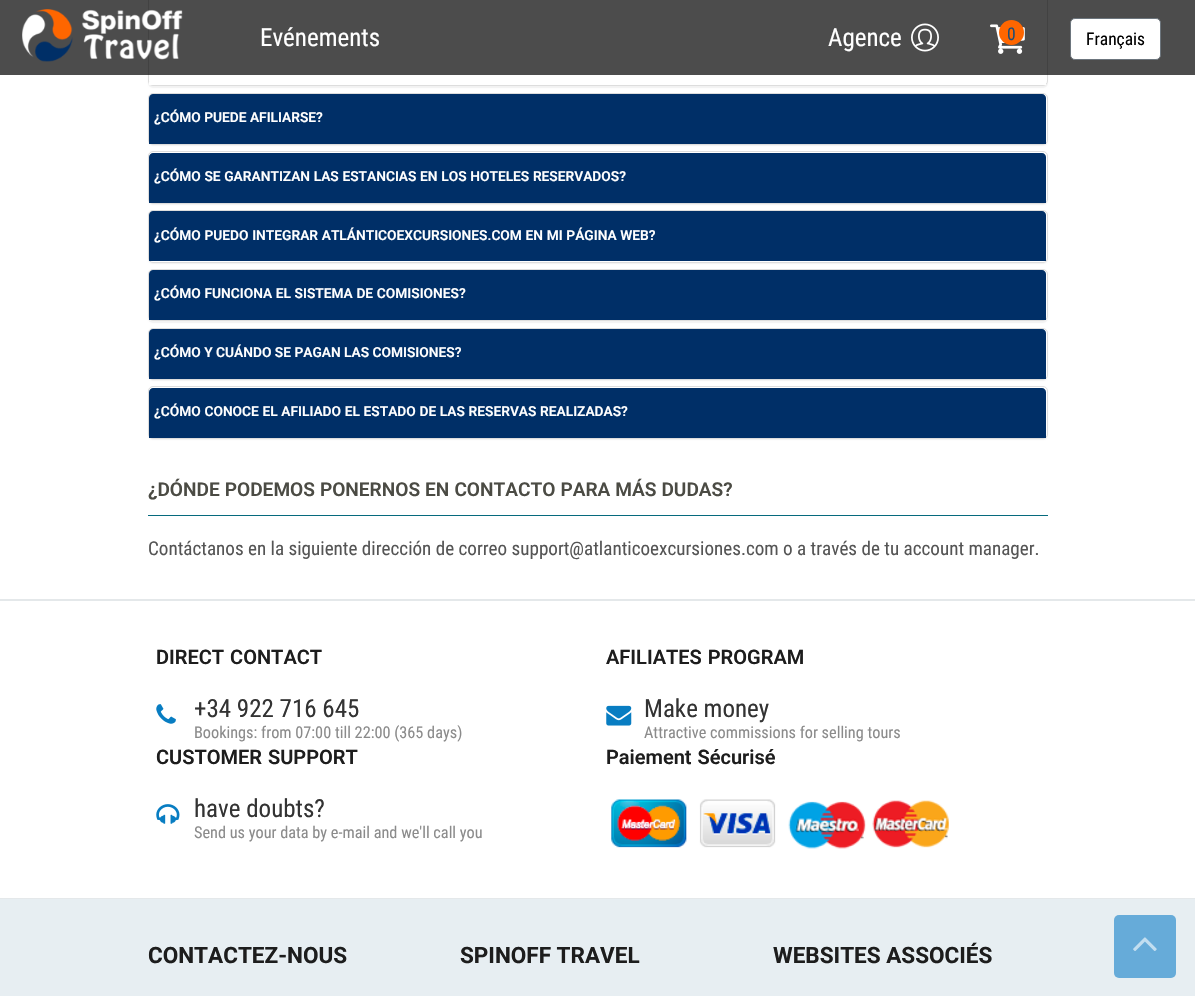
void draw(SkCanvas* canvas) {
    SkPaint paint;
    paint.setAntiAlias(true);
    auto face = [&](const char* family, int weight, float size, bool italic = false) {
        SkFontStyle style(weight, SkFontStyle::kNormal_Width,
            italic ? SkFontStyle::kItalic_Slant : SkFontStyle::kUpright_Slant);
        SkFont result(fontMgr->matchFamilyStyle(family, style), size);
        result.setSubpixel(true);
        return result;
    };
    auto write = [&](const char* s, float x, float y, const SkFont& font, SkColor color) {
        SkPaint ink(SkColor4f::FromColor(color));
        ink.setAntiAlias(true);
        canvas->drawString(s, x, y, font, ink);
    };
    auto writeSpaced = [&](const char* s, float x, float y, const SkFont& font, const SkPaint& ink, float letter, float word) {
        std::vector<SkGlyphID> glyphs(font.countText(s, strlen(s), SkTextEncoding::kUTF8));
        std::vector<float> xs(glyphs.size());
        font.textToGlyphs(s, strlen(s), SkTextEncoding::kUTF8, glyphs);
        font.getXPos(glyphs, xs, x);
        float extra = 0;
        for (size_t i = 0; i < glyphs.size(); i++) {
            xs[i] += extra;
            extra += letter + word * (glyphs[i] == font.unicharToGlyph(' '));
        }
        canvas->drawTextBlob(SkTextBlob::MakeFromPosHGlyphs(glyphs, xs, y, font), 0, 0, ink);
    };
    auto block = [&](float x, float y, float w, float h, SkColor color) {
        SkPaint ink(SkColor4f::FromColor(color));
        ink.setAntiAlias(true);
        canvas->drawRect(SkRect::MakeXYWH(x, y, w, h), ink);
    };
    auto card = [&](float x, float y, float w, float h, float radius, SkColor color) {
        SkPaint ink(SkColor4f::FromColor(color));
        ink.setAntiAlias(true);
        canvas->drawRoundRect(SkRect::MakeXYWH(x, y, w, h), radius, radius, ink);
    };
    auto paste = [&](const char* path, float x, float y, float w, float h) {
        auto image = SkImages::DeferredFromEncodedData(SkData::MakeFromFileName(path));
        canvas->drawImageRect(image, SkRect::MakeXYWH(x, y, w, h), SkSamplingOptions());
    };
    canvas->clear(SK_ColorWHITE);
    paint.setColor(SkColorSetARGB(13, 0, 0, 0));
    paint.setMaskFilter(SkMaskFilter::MakeBlur(kNormal_SkBlurStyle, 0.5f));
    canvas->drawRoundRect(SkRect::MakeXYWH(148, -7, 900, 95), 5, 5, paint);
    paint.setMaskFilter(nullptr);
    paint.setColor(SK_ColorWHITE);
    canvas->drawRoundRect(SkRect::MakeXYWH(148.5f, -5.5f, 899, 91), 4.5f, 4.5f, paint);
    paint.setStyle(SkPaint::kStroke_Style);
    paint.setStrokeWidth(1);
    paint.setColor(SkColorSetRGB(221, 221, 221));
    canvas->drawRoundRect(SkRect::MakeXYWH(148.5f, -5.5f, 899, 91), 4.5f, 4.5f, paint);
    block(0, 0, 1195, 75, SkColorSetARGB(179, 0, 0, 0));
    paste("pic1.png", 22, 9, 161, 53);
    auto kFont1 = face("Roboto Condensed", 400, 25);
    write("Evénements", 260, 46, kFont1, SK_ColorWHITE);
    write("Agence", 828, 46, kFont1, SK_ColorWHITE);
    paste("pic2.png", 911, 23, 28, 29);
    paste("pic3.png", 990, 24, 35, 30);
    paint.setStyle(SkPaint::kFill_Style);
    paint.setColor(SkColorSetRGB(255, 102, 0));
    canvas->drawCircle(1011.5f, 32.5f, 12.5f, paint);
    auto kFont2 = face("Roboto Condensed", 400, 17.5f);
    write("0", 1007, 40, kFont2, SkColorSetRGB(32, 77, 116));
    paint.setColor(SK_ColorWHITE);
    canvas->drawRoundRect(SkRect::MakeXYWH(1070.5f, 18.5f, 90, 41), 4.5f, 4.5f, paint);
    paint.setStyle(SkPaint::kStroke_Style);
    paint.setColor(SkColorSetRGB(108, 117, 125));
    canvas->drawRoundRect(SkRect::MakeXYWH(1070.5f, 18.5f, 90, 41), 4.5f, 4.5f, paint);
    write("Français", 1086, 45, kFont2, SK_ColorBLACK);
    block(149, 82, 897, 3, SK_ColorWHITE);
    paint.setStyle(SkPaint::kFill_Style);
    paint.setColor(SkColorSetARGB(13, 0, 0, 0));
    paint.setMaskFilter(SkMaskFilter::MakeBlur(kNormal_SkBlurStyle, 0.5f));
    canvas->drawRoundRect(SkRect::MakeXYWH(148, 94, 900, 52), 5, 5, paint);
    paint.setMaskFilter(nullptr);
    paint.setColor(SK_ColorWHITE);
    canvas->drawRoundRect(SkRect::MakeXYWH(148.5f, 93.5f, 899, 51), 4.5f, 4.5f, paint);
    paint.setStyle(SkPaint::kStroke_Style);
    paint.setColor(SkColorSetRGB(221, 221, 221));
    canvas->drawRoundRect(SkRect::MakeXYWH(148.5f, 93.5f, 899, 51), 4.5f, 4.5f, paint);
    paint.setStyle(SkPaint::kFill_Style);
    paint.setColor(SkColorSetRGB(0, 47, 103));
    canvas->drawPath(SkPathBuilder().moveTo(153, 94).lineTo(1042, 94).cubicTo(1044, 94, 1046, 96, 1046, 98).lineTo(1046, 144).lineTo(149, 144).lineTo(149, 98).cubicTo(149, 96, 151, 94, 153, 94).close().detach(), paint);
    auto kFont3 = face("Roboto", 600, 13.75f);
    write("¿CÓMO PUEDE AFILIARSE?", 154, 122, kFont3, SK_ColorWHITE);
    paint.setColor(SkColorSetARGB(13, 0, 0, 0));
    paint.setMaskFilter(SkMaskFilter::MakeBlur(kNormal_SkBlurStyle, 0.5f));
    canvas->drawRoundRect(SkRect::MakeXYWH(148, 153, 900, 52), 5, 5, paint);
    paint.setMaskFilter(nullptr);
    paint.setColor(SK_ColorWHITE);
    canvas->drawRoundRect(SkRect::MakeXYWH(148.5f, 151.5f, 899, 52), 4.5f, 4.5f, paint);
    paint.setStyle(SkPaint::kStroke_Style);
    paint.setColor(SkColorSetRGB(221, 221, 221));
    canvas->drawRoundRect(SkRect::MakeXYWH(148.5f, 151.5f, 899, 52), 4.5f, 4.5f, paint);
    paint.setStyle(SkPaint::kFill_Style);
    paint.setColor(SkColorSetRGB(0, 47, 103));
    canvas->drawPath(SkPathBuilder().moveTo(153, 153).lineTo(1042, 153).cubicTo(1044, 153, 1046, 155, 1046, 157).lineTo(1046, 203).lineTo(149, 203).lineTo(149, 157).cubicTo(149, 155, 151, 153, 153, 153).close().detach(), paint);
    paint.setColor(SK_ColorWHITE);
    writeSpaced("¿CÓMO SE GARANTIZAN LAS ESTANCIAS EN LOS HOTELES RESERVADOS?", 154, 181, kFont3, paint, 0, 0.25f);
    paint.setColor(SkColorSetARGB(13, 0, 0, 0));
    paint.setMaskFilter(SkMaskFilter::MakeBlur(kNormal_SkBlurStyle, 0.5f));
    canvas->drawRoundRect(SkRect::MakeXYWH(148, 211, 900, 53), 5, 5, paint);
    paint.setMaskFilter(nullptr);
    paint.setColor(SK_ColorWHITE);
    canvas->drawRoundRect(SkRect::MakeXYWH(148.5f, 210.5f, 899, 52), 4.5f, 4.5f, paint);
    paint.setStyle(SkPaint::kStroke_Style);
    paint.setColor(SkColorSetRGB(221, 221, 221));
    canvas->drawRoundRect(SkRect::MakeXYWH(148.5f, 210.5f, 899, 52), 4.5f, 4.5f, paint);
    paint.setStyle(SkPaint::kFill_Style);
    paint.setColor(SkColorSetRGB(0, 47, 103));
    canvas->drawPath(SkPathBuilder().moveTo(153, 211).lineTo(1042, 211).cubicTo(1044, 211, 1046, 213, 1046, 215).lineTo(1046, 261).lineTo(149, 261).lineTo(149, 215).cubicTo(149, 213, 151, 211, 153, 211).close().detach(), paint);
    paint.setColor(SK_ColorWHITE);
    writeSpaced("¿CÓMO PUEDO INTEGRAR ATLÁNTICOEXCURSIONES.COM EN MI PÁGINA WEB?", 154, 240, kFont3, paint, 0, 0.25f);
    paint.setColor(SkColorSetARGB(13, 0, 0, 0));
    paint.setMaskFilter(SkMaskFilter::MakeBlur(kNormal_SkBlurStyle, 0.5f));
    canvas->drawRoundRect(SkRect::MakeXYWH(148, 270, 900, 53), 5, 5, paint);
    paint.setMaskFilter(nullptr);
    paint.setColor(SK_ColorWHITE);
    canvas->drawRoundRect(SkRect::MakeXYWH(148.5f, 269.5f, 899, 51), 4.5f, 4.5f, paint);
    paint.setStyle(SkPaint::kStroke_Style);
    paint.setColor(SkColorSetRGB(221, 221, 221));
    canvas->drawRoundRect(SkRect::MakeXYWH(148.5f, 269.5f, 899, 51), 4.5f, 4.5f, paint);
    paint.setStyle(SkPaint::kFill_Style);
    paint.setColor(SkColorSetRGB(0, 47, 103));
    canvas->drawPath(SkPathBuilder().moveTo(153, 270).lineTo(1042, 270).cubicTo(1044, 270, 1046, 272, 1046, 274).lineTo(1046, 320).lineTo(149, 320).lineTo(149, 274).cubicTo(149, 272, 151, 270, 153, 270).close().detach(), paint);
    paint.setColor(SK_ColorWHITE);
    writeSpaced("¿CÓMO FUNCIONA EL SISTEMA DE COMISIONES?", 154, 298, kFont3, paint, 0, 0.25f);
    paint.setColor(SkColorSetARGB(13, 0, 0, 0));
    paint.setMaskFilter(SkMaskFilter::MakeBlur(kNormal_SkBlurStyle, 0.5f));
    canvas->drawRoundRect(SkRect::MakeXYWH(148, 329, 900, 52), 5, 5, paint);
    paint.setMaskFilter(nullptr);
    paint.setColor(SK_ColorWHITE);
    canvas->drawRoundRect(SkRect::MakeXYWH(148.5f, 328.5f, 899, 51), 4.5f, 4.5f, paint);
    paint.setStyle(SkPaint::kStroke_Style);
    paint.setColor(SkColorSetRGB(221, 221, 221));
    canvas->drawRoundRect(SkRect::MakeXYWH(148.5f, 328.5f, 899, 51), 4.5f, 4.5f, paint);
    paint.setStyle(SkPaint::kFill_Style);
    paint.setColor(SkColorSetRGB(0, 47, 103));
    canvas->drawPath(SkPathBuilder().moveTo(153, 329).lineTo(1042, 329).cubicTo(1044, 329, 1046, 331, 1046, 333).lineTo(1046, 379).lineTo(149, 379).lineTo(149, 333).cubicTo(149, 331, 151, 329, 153, 329).close().detach(), paint);
    write("¿CÓMO Y CUÁNDO SE PAGAN LAS COMISIONES?", 154, 357, kFont3, SK_ColorWHITE);
    paint.setColor(SkColorSetARGB(13, 0, 0, 0));
    paint.setMaskFilter(SkMaskFilter::MakeBlur(kNormal_SkBlurStyle, 0.5f));
    canvas->drawRoundRect(SkRect::MakeXYWH(148, 388, 900, 52), 5, 5, paint);
    paint.setMaskFilter(nullptr);
    paint.setColor(SK_ColorWHITE);
    canvas->drawRoundRect(SkRect::MakeXYWH(148.5f, 386.5f, 899, 52), 4.5f, 4.5f, paint);
    paint.setStyle(SkPaint::kStroke_Style);
    paint.setColor(SkColorSetRGB(221, 221, 221));
    canvas->drawRoundRect(SkRect::MakeXYWH(148.5f, 386.5f, 899, 52), 4.5f, 4.5f, paint);
    paint.setStyle(SkPaint::kFill_Style);
    paint.setColor(SkColorSetRGB(0, 47, 103));
    canvas->drawPath(SkPathBuilder().moveTo(153, 388).lineTo(1042, 388).cubicTo(1044, 388, 1046, 390, 1046, 392).lineTo(1046, 438).lineTo(149, 438).lineTo(149, 392).cubicTo(149, 390, 151, 388, 153, 388).close().detach(), paint);
    paint.setColor(SK_ColorWHITE);
    writeSpaced("¿CÓMO CONOCE EL AFILIADO EL ESTADO DE LAS RESERVAS REALIZADAS?", 154, 416, kFont3, paint, 0, 0.25f);
    block(148, 515, 900, 1, SkColorSetRGB(6, 106, 125));
    auto kFont4 = face("Roboto", 600, 19.1f);
    paint.setColor(SkColorSetRGB(75, 75, 68));
    writeSpaced("¿DÓNDE PODEMOS PONERNOS EN CONTACTO PARA MÁS DUDAS?", 148, 496, kFont4, paint, 0, 0.25f);
    auto kFont5 = face("Roboto Condensed", 400, 19.1f);
    write("Contáctanos en la siguiente dirección de correo support@atlanticoexcursiones.com o a través de tu account manager.", 148, 555, kFont5, SkColorSetRGB(85, 85, 85));
    block(0, 599, 1195, 2, SkColorSetRGB(228, 232, 234));
    auto kFont6 = face("Roboto", 600, 20);
    paint.setColor(SkColorSetRGB(29, 29, 29));
    writeSpaced("DIRECT CONTACT", 156, 664, kFont6, paint, 0, 1);
    paste("pic4.png", 156, 704, 20, 20);
    write("+34 922 716 645", 194, 717, kFont1, SkColorSetRGB(51, 51, 51));
    auto kFont7 = face("Roboto Condensed", 400, 16.25f);
    write("Bookings: from 07:00 till 22:00 (365 days)", 194, 738, kFont7, SkColorSetRGB(139, 139, 139));
    writeSpaced("AFILIATES PROGRAM", 606, 664, kFont6, paint, 0, 1);
    paste("pic5.png", 606, 705, 26, 21);
    write("Make money", 644, 717, kFont1, SkColorSetRGB(51, 51, 51));
    write("Attractive commissions for selling tours", 644, 738, kFont7, SkColorSetRGB(139, 139, 139));
    writeSpaced("CUSTOMER SUPPORT", 156, 764, kFont6, paint, 0, 1);
    paste("pic6.png", 156, 804, 24, 20);
    write("have doubts?", 194, 817, kFont1, SkColorSetRGB(51, 51, 51));
    write("Send us your data by e-mail and we'll call you", 194, 838, kFont7, SkColorSetRGB(139, 139, 139));
    writeSpaced("Paiement Sécurisé", 606, 764, kFont6, paint, 0, 1);
    paste("pic7.png", 611, 799, 338, 50);
    block(0, 899, 1195, 97, SkColorSetRGB(231, 238, 242));
    block(0, 898, 1195, 1, SkColorSetRGB(228, 232, 234));
    auto kFont8 = face("Roboto", 700, 22.5f);
    write("CONTACTEZ-NOUS", 148, 963, kFont8, SkColorSetRGB(29, 29, 29));
    write("SPINOFF TRAVEL", 460, 963, kFont8, SkColorSetRGB(29, 29, 29));
    write("WEBSITES ASSOCIÉS", 773, 963, kFont8, SkColorSetRGB(29, 29, 29));
    card(1114, 915, 62, 63, 5, SkColorSetRGB(102, 171, 217));
    paste("pic8.png", 1133, 937, 24, 14);
}
